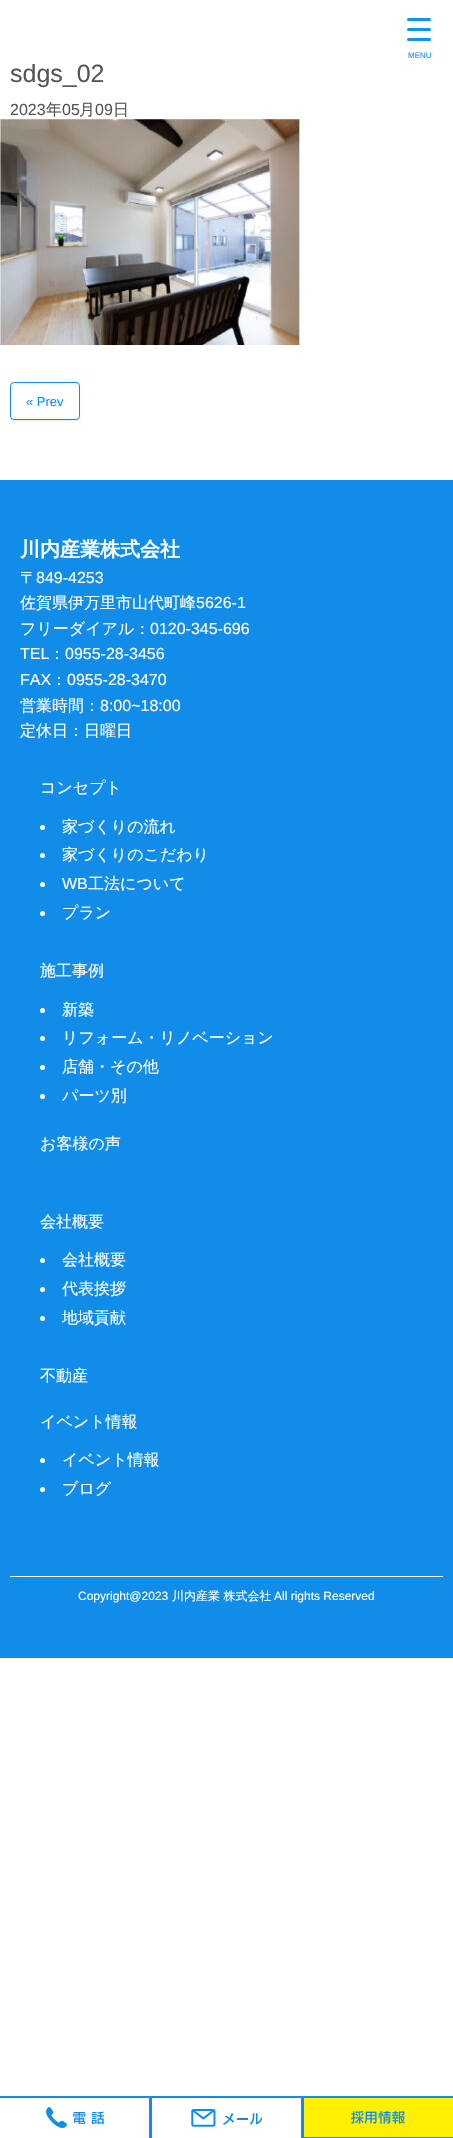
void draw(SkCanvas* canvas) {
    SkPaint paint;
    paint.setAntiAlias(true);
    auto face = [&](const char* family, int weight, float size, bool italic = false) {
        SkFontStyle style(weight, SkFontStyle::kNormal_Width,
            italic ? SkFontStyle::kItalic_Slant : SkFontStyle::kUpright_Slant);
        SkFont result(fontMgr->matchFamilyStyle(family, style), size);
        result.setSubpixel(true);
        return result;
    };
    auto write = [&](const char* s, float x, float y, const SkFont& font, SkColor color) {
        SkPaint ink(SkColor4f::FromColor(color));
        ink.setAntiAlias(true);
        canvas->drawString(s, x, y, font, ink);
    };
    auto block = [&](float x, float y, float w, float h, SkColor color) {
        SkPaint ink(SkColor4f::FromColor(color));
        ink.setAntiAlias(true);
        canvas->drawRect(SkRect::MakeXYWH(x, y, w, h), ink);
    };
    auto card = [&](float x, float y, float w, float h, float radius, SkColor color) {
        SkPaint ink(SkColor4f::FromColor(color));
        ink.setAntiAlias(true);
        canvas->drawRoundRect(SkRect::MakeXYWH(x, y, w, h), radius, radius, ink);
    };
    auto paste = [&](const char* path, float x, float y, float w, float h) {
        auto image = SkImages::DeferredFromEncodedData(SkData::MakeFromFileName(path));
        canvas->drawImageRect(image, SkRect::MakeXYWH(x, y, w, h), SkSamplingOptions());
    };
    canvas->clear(SK_ColorWHITE);
    block(0, 480, 453, 1178, SkColorSetRGB(17, 141, 233));
    card(407, 28, 24, 3, 1.5f, SkColorSetRGB(17, 146, 238));
    card(407, 18, 24, 3, 1.5f, SkColorSetRGB(17, 146, 238));
    card(407, 38, 24, 3, 1.5f, SkColorSetRGB(17, 146, 238));
    auto kFont1 = face("Liberation Sans", 400, 8);
    write("MENU", 408, 58, kFont1, SkColorSetRGB(17, 141, 233));
    auto kFont2 = face("WenQuanYi Zen Hei", 700, 20);
    write("川内産業株式会社", 20, 556, kFont2, SK_ColorWHITE);
    auto kFont3 = face("WenQuanYi Zen Hei", 500, 16);
    write("〒", 20, 583, kFont3, SK_ColorWHITE);
    auto kFont4 = face("Liberation Sans", 400, 16);
    write("849-4253", 36, 583, kFont4, SK_ColorWHITE);
    write("佐賀県伊万里市山代町峰", 20, 608, kFont3, SK_ColorWHITE);
    write("5626-1", 196, 608, kFont4, SK_ColorWHITE);
    write("フリーダイアル：", 20, 634, kFont3, SK_ColorWHITE);
    write("0120-345-696", 150, 634, kFont4, SK_ColorWHITE);
    write("TEL", 20, 659, kFont4, SK_ColorWHITE);
    write("：", 49, 659, kFont3, SK_ColorWHITE);
    write("0955-28-3456", 65, 659, kFont4, SK_ColorWHITE);
    write("FAX", 20, 685, kFont4, SK_ColorWHITE);
    write("：", 51, 685, kFont3, SK_ColorWHITE);
    write("0955-28-3470", 67, 685, kFont4, SK_ColorWHITE);
    write("営業時間：", 20, 711, kFont3, SK_ColorWHITE);
    write("8:00~18:00", 100, 711, kFont4, SK_ColorWHITE);
    write("定休日：日曜日", 20, 736, kFont3, SK_ColorWHITE);
    write("コンセプト", 40, 793, kFont3, SK_ColorWHITE);
    paint.setColor(SK_ColorWHITE);
    canvas->drawCircle(42.5f, 827.5f, 2.5f, paint);
    write("家づくりの流れ", 62, 832, kFont3, SK_ColorWHITE);
    canvas->drawCircle(42.5f, 855.5f, 2.5f, paint);
    write("家づくりのこだわり", 62, 860, kFont3, SK_ColorWHITE);
    canvas->drawCircle(42.5f, 884.5f, 2.5f, paint);
    write("WB", 62, 889, kFont4, SK_ColorWHITE);
    write("工法について", 88, 889, kFont3, SK_ColorWHITE);
    canvas->drawCircle(42.5f, 913.5f, 2.5f, paint);
    write("プラン", 62, 918, kFont3, SK_ColorWHITE);
    write("施工事例", 40, 976, kFont3, SK_ColorWHITE);
    canvas->drawCircle(42.5f, 1010.5f, 2.5f, paint);
    write("新築", 62, 1015, kFont3, SK_ColorWHITE);
    canvas->drawCircle(42.5f, 1038.5f, 2.5f, paint);
    write("リフォーム・リノベーション", 62, 1043, kFont3, SK_ColorWHITE);
    canvas->drawCircle(42.5f, 1067.5f, 2.5f, paint);
    write("店舗・その他", 62, 1072, kFont3, SK_ColorWHITE);
    canvas->drawCircle(42.5f, 1096.5f, 2.5f, paint);
    write("パーツ別", 62, 1101, kFont3, SK_ColorWHITE);
    write("お客様の声", 40, 1149, kFont3, SK_ColorWHITE);
    write("会社概要", 40, 1227, kFont3, SK_ColorWHITE);
    canvas->drawCircle(42.5f, 1260.5f, 2.5f, paint);
    write("会社概要", 62, 1265, kFont3, SK_ColorWHITE);
    canvas->drawCircle(42.5f, 1289.5f, 2.5f, paint);
    write("代表挨拶", 62, 1294, kFont3, SK_ColorWHITE);
    canvas->drawCircle(42.5f, 1318.5f, 2.5f, paint);
    write("地域貢献", 62, 1323, kFont3, SK_ColorWHITE);
    write("不動産", 40, 1381, kFont3, SK_ColorWHITE);
    write("イベント情報", 40, 1427, kFont3, SK_ColorWHITE);
    canvas->drawCircle(42.5f, 1460.5f, 2.5f, paint);
    write("イベント情報", 62, 1465, kFont3, SK_ColorWHITE);
    canvas->drawCircle(42.5f, 1489.5f, 2.5f, paint);
    write("ブログ", 62, 1494, kFont3, SK_ColorWHITE);
    block(10, 1576, 433, 1, SK_ColorWHITE);
    auto kFont5 = face("Liberation Sans", 400, 12);
    write("Copyright@2023", 78, 1600, kFont5, SK_ColorWHITE);
    auto kFont6 = face("WenQuanYi Zen Hei", 500, 12);
    write("川内産業 株式会社", 172, 1600, kFont6, SK_ColorWHITE);
    write("All rights Reserved", 274, 1600, kFont5, SK_ColorWHITE);
    block(0, 2096, 453, 42, SkColorSetRGB(17, 141, 233));
    block(0, 2098, 149, 40, SK_ColorWHITE);
    paste("pic1.png", 46, 2107, 58, 21);
    block(152, 2098, 149, 40, SK_ColorWHITE);
    paste("pic2.png", 191, 2109, 71, 18);
    block(304, 2098, 149, 39, SkColorSetRGB(255, 241, 0));
    paste("pic3.png", 351, 2111, 54, 13);
    auto kFont7 = face("Liberation Sans", 400, 25);
    write("sdgs_02", 10, 82, kFont7, SkColorSetRGB(85, 85, 85));
    write("2023", 10, 115, kFont4, SkColorSetRGB(85, 85, 85));
    write("年", 46, 115, kFont3, SkColorSetRGB(85, 85, 85));
    write("05", 62, 115, kFont4, SkColorSetRGB(85, 85, 85));
    write("月", 79, 115, kFont3, SkColorSetRGB(85, 85, 85));
    write("09", 95, 115, kFont4, SkColorSetRGB(85, 85, 85));
    write("日", 113, 115, kFont3, SkColorSetRGB(85, 85, 85));
    paste("pic4.png", 0, 119, 300, 226);
    paint.setColor(SkColorSetARGB(26, 50, 50, 50));
    paint.setMaskFilter(SkMaskFilter::MakeBlur(kNormal_SkBlurStyle, 1));
    canvas->drawRoundRect(SkRect::MakeXYWH(10, 383, 70, 38), 4, 4, paint);
    paint.setMaskFilter(nullptr);
    paint.setColor(SK_ColorWHITE);
    canvas->drawRoundRect(SkRect::MakeXYWH(10.5f, 382.5f, 69, 37), 3.5f, 3.5f, paint);
    paint.setStyle(SkPaint::kStroke_Style);
    paint.setStrokeWidth(1);
    paint.setColor(SkColorSetRGB(17, 141, 233));
    canvas->drawRoundRect(SkRect::MakeXYWH(10.5f, 382.5f, 69, 37), 3.5f, 3.5f, paint);
    auto kFont8 = face("Liberation Sans", 400, 13);
    write("« Prev", 26, 406, kFont8, SkColorSetRGB(17, 141, 233));
}
